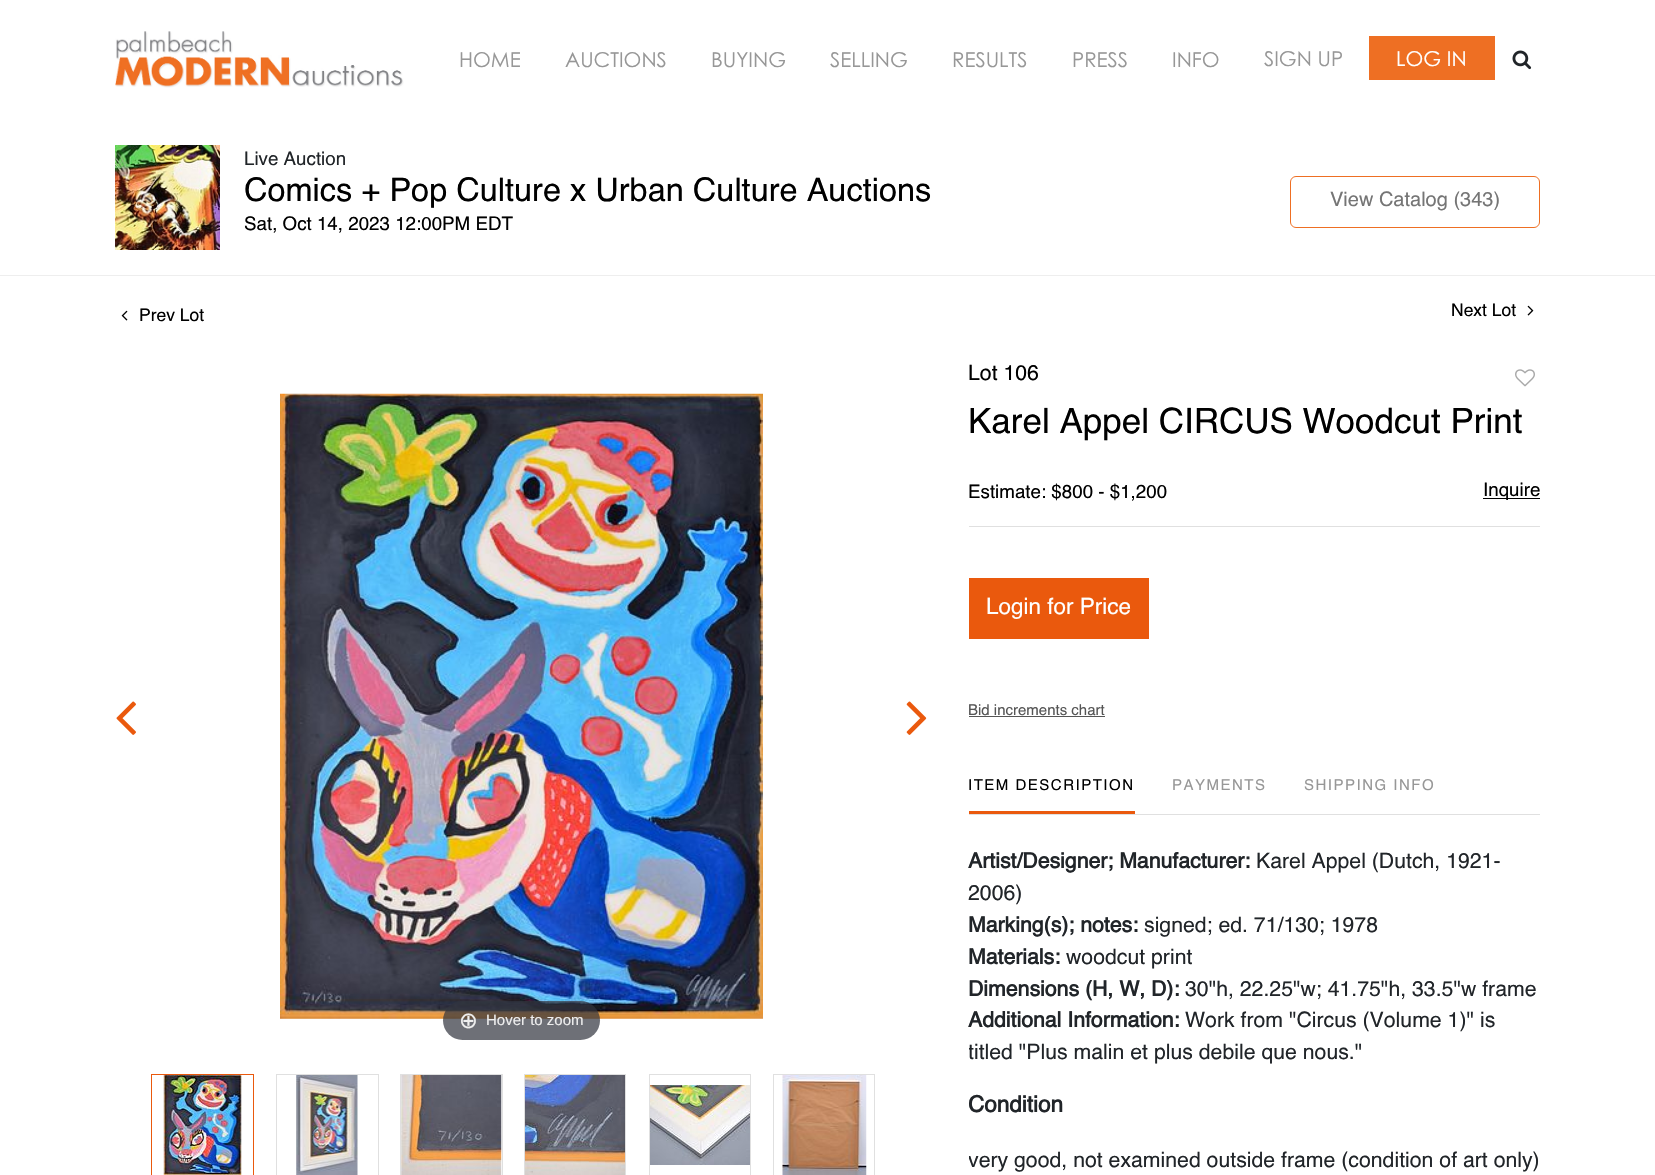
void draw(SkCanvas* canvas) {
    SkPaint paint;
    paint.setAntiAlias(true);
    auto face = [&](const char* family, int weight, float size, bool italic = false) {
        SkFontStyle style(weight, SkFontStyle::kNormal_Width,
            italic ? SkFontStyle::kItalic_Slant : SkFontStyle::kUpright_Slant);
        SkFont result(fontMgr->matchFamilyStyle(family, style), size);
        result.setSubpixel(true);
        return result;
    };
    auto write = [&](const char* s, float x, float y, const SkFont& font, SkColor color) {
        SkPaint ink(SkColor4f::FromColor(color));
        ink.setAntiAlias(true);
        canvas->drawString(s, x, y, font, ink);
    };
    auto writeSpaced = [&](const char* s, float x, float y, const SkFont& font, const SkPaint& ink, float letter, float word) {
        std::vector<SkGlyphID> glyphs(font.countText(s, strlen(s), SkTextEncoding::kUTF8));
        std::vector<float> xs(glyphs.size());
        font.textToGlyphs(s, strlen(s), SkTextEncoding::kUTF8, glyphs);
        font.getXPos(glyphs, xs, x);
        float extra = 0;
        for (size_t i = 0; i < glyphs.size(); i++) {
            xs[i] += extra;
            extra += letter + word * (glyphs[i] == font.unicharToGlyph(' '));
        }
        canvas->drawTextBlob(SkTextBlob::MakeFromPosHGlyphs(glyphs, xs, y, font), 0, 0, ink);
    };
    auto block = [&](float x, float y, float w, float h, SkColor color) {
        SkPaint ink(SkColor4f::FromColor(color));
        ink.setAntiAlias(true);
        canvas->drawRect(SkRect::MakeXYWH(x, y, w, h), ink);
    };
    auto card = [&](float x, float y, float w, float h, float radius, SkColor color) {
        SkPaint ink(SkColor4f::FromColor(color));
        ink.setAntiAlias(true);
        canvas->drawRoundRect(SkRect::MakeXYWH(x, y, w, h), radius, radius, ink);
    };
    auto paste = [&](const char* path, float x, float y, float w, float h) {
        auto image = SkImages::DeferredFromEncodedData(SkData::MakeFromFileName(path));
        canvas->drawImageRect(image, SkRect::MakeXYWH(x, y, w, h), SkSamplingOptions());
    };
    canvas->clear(SK_ColorWHITE);
    paste("pic1.png", 115, 31, 289, 57);
    auto kFont1 = face("Century Gothic", 400, 20.5f);
    write("HOME", 459, 67, kFont1, SkColorSetRGB(151, 151, 151));
    write("AUCTIONS", 565, 67, kFont1, SkColorSetRGB(151, 151, 151));
    write("BUYING", 711, 67, kFont1, SkColorSetRGB(151, 151, 151));
    write("SELLING", 830, 67, kFont1, SkColorSetRGB(151, 151, 151));
    write("RESULTS", 952, 67, kFont1, SkColorSetRGB(151, 151, 151));
    write("PRESS", 1072, 67, kFont1, SkColorSetRGB(151, 151, 151));
    write("INFO", 1172, 67, kFont1, SkColorSetRGB(151, 151, 151));
    write("SIGN UP", 1264, 66, kFont1, SkColorSetRGB(151, 151, 151));
    block(1369, 36, 126, 44, SkColorSetRGB(238, 111, 35));
    write("LOG IN", 1396, 66, kFont1, SK_ColorWHITE);
    paste("pic2.png", 1512, 50, 20, 20);
    paste("pic3.png", 115, 145, 105, 105);
    auto kFont2 = face("Helvetica", 400, 18.75f);
    write("Live Auction", 244, 165, kFont2, SkColorSetRGB(33, 37, 41));
    auto kFont3 = face("Helvetica", 400, 32.5f);
    write("Comics + Pop Culture x Urban Culture Auctions", 244, 201, kFont3, SK_ColorBLACK);
    write("Sat, Oct 14, 2023 12:00PM EDT", 244, 230, kFont2, SK_ColorBLACK);
    paint.setStyle(SkPaint::kStroke_Style);
    paint.setStrokeWidth(1);
    paint.setColor(SkColorSetRGB(238, 111, 35));
    canvas->drawRoundRect(SkRect::MakeXYWH(1290.5f, 176.5f, 249, 51), 5.5f, 5.5f, paint);
    auto kFont4 = face("Helvetica", 400, 20);
    write("View Catalog (343)", 1330, 206, kFont4, SkColorSetRGB(117, 117, 117));
    block(0, 275, 1655, 1, SkColorSetRGB(238, 238, 238));
    paste("pic4.png", 121, 310, 7, 11);
    auto kFont5 = face("Helvetica", 400, 17.5f);
    write("Prev Lot", 139, 321, kFont5, SK_ColorBLACK);
    write("Next Lot", 1451, 316, kFont5, SK_ColorBLACK);
    paste("pic5.png", 1527, 305, 7, 11);
    paste("pic6.png", 116, 701, 20, 34);
    paste("pic7.png", 906, 701, 21, 34);
    paste("pic8.png", 280, 393, 483, 626);
    card(443, 1001, 157, 39, 19.5f, SkColorSetARGB(179, 49, 51, 61));
    auto kFont6 = face("DejaVu Sans", 400, 22.5f);
    write("⊕", 459, 1028, kFont6, SkColorSetRGB(238, 238, 238));
    auto kFont7 = face("Liberation Sans", 400, 15);
    write("Hover to zoom", 486, 1025, kFont7, SkColorSetRGB(238, 238, 238));
    paste("pic9.png", 163, 1075, 79, 100);
    paint.setColor(SkColorSetRGB(234, 89, 13));
    canvas->drawRect(SkRect::MakeXYWH(151.5f, 1074.5f, 102, 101), paint);
    paste("pic10.png", 296, 1075, 62, 100);
    paint.setColor(SkColorSetRGB(224, 224, 224));
    canvas->drawRect(SkRect::MakeXYWH(276.5f, 1074.5f, 102, 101), paint);
    paste("pic11.png", 401, 1075, 101, 100);
    canvas->drawRect(SkRect::MakeXYWH(400.5f, 1074.5f, 102, 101), paint);
    paste("pic12.png", 525, 1075, 100, 100);
    canvas->drawRect(SkRect::MakeXYWH(524.5f, 1074.5f, 101, 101), paint);
    paste("pic13.png", 650, 1085, 100, 80);
    canvas->drawRect(SkRect::MakeXYWH(649.5f, 1074.5f, 101, 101), paint);
    paste("pic14.png", 782, 1075, 85, 100);
    canvas->drawRect(SkRect::MakeXYWH(773.5f, 1074.5f, 101, 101), paint);
    auto kFont8 = face("Helvetica", 400, 21.25f);
    write("Lot 106", 968, 380, kFont8, SK_ColorBLACK);
    paste("pic15.png", 1515, 369, 20, 18);
    auto kFont9 = face("Helvetica", 400, 35);
    write("Karel Appel CIRCUS Woodcut Print", 968, 433, kFont9, SK_ColorBLACK);
    block(969, 526, 571, 1, SkColorSetRGB(224, 224, 224));
    write("Estimate: $800 - $1,200", 968, 498, kFont2, SK_ColorBLACK);
    block(1483, 498, 57, 1, SK_ColorBLACK);
    write("Inquire", 1483, 496, kFont2, SK_ColorBLACK);
    block(969, 578, 180, 61, SkColorSetRGB(234, 89, 13));
    auto kFont10 = face("Helvetica", 400, 22.5f);
    write("Login for Price", 986, 614, kFont10, SK_ColorWHITE);
    auto kFont11 = face("Helvetica", 400, 15);
    write("Bid increments chart", 968, 715, kFont11, SkColorSetRGB(85, 85, 85));
    block(969, 716, 136, 1, SkColorSetRGB(85, 85, 85));
    block(969, 814, 571, 1, SkColorSetRGB(224, 224, 224));
    paint.setStyle(SkPaint::kFill_Style);
    paint.setColor(SK_ColorBLACK);
    writeSpaced("ITEM DESCRIPTION", 968, 790, kFont11, paint, 1.5f, 0);
    block(969, 811, 166, 3, SkColorSetRGB(234, 89, 13));
    paint.setColor(SkColorSetRGB(151, 151, 151));
    writeSpaced("PAYMENTS", 1172, 790, kFont11, paint, 1.5f, 0);
    writeSpaced("SHIPPING INFO", 1304, 790, kFont11, paint, 1.5f, 0);
    auto kFont12 = face("Helvetica", 700, 21.25f);
    write("Artist/Designer; Manufacturer:", 968, 868, kFont12, SkColorSetRGB(33, 37, 41));
    write("Karel Appel (Dutch, 1921-", 1256, 868, kFont8, SkColorSetRGB(33, 37, 41));
    write("2006)", 968, 900, kFont8, SkColorSetRGB(33, 37, 41));
    write("Marking(s); notes:", 968, 932, kFont12, SkColorSetRGB(33, 37, 41));
    write("signed; ed. 71/130; 1978", 1144, 932, kFont8, SkColorSetRGB(33, 37, 41));
    write("Materials:", 968, 964, kFont12, SkColorSetRGB(33, 37, 41));
    write("woodcut print", 1066, 964, kFont8, SkColorSetRGB(33, 37, 41));
    write("Dimensions (H, W, D):", 968, 996, kFont12, SkColorSetRGB(33, 37, 41));
    write("30\"h, 22.25\"w; 41.75\"h, 33.5\"w frame", 1185, 996, kFont8, SkColorSetRGB(33, 37, 41));
    write("Additional Information:", 968, 1027, kFont12, SkColorSetRGB(33, 37, 41));
    write("Work from \"Circus (Volume 1)\" is", 1185, 1027, kFont8, SkColorSetRGB(33, 37, 41));
    canvas->save();
    canvas->clipRect(SkRect::MakeXYWH(969, 834, 571, 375));
    write("titled \"Plus malin et plus debile que nous.\"", 968, 1059, kFont8, SkColorSetRGB(33, 37, 41));
    canvas->restore();
    auto kFont13 = face("Helvetica", 700, 22.5f);
    write("Condition", 968, 1112, kFont13, SkColorSetRGB(33, 37, 41));
    canvas->save();
    canvas->clipRect(SkRect::MakeXYWH(969, 834, 571, 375));
    write("very good, not examined outside frame (condition of art only)", 968, 1167, kFont8, SkColorSetRGB(33, 37, 41));
    canvas->restore();
}
